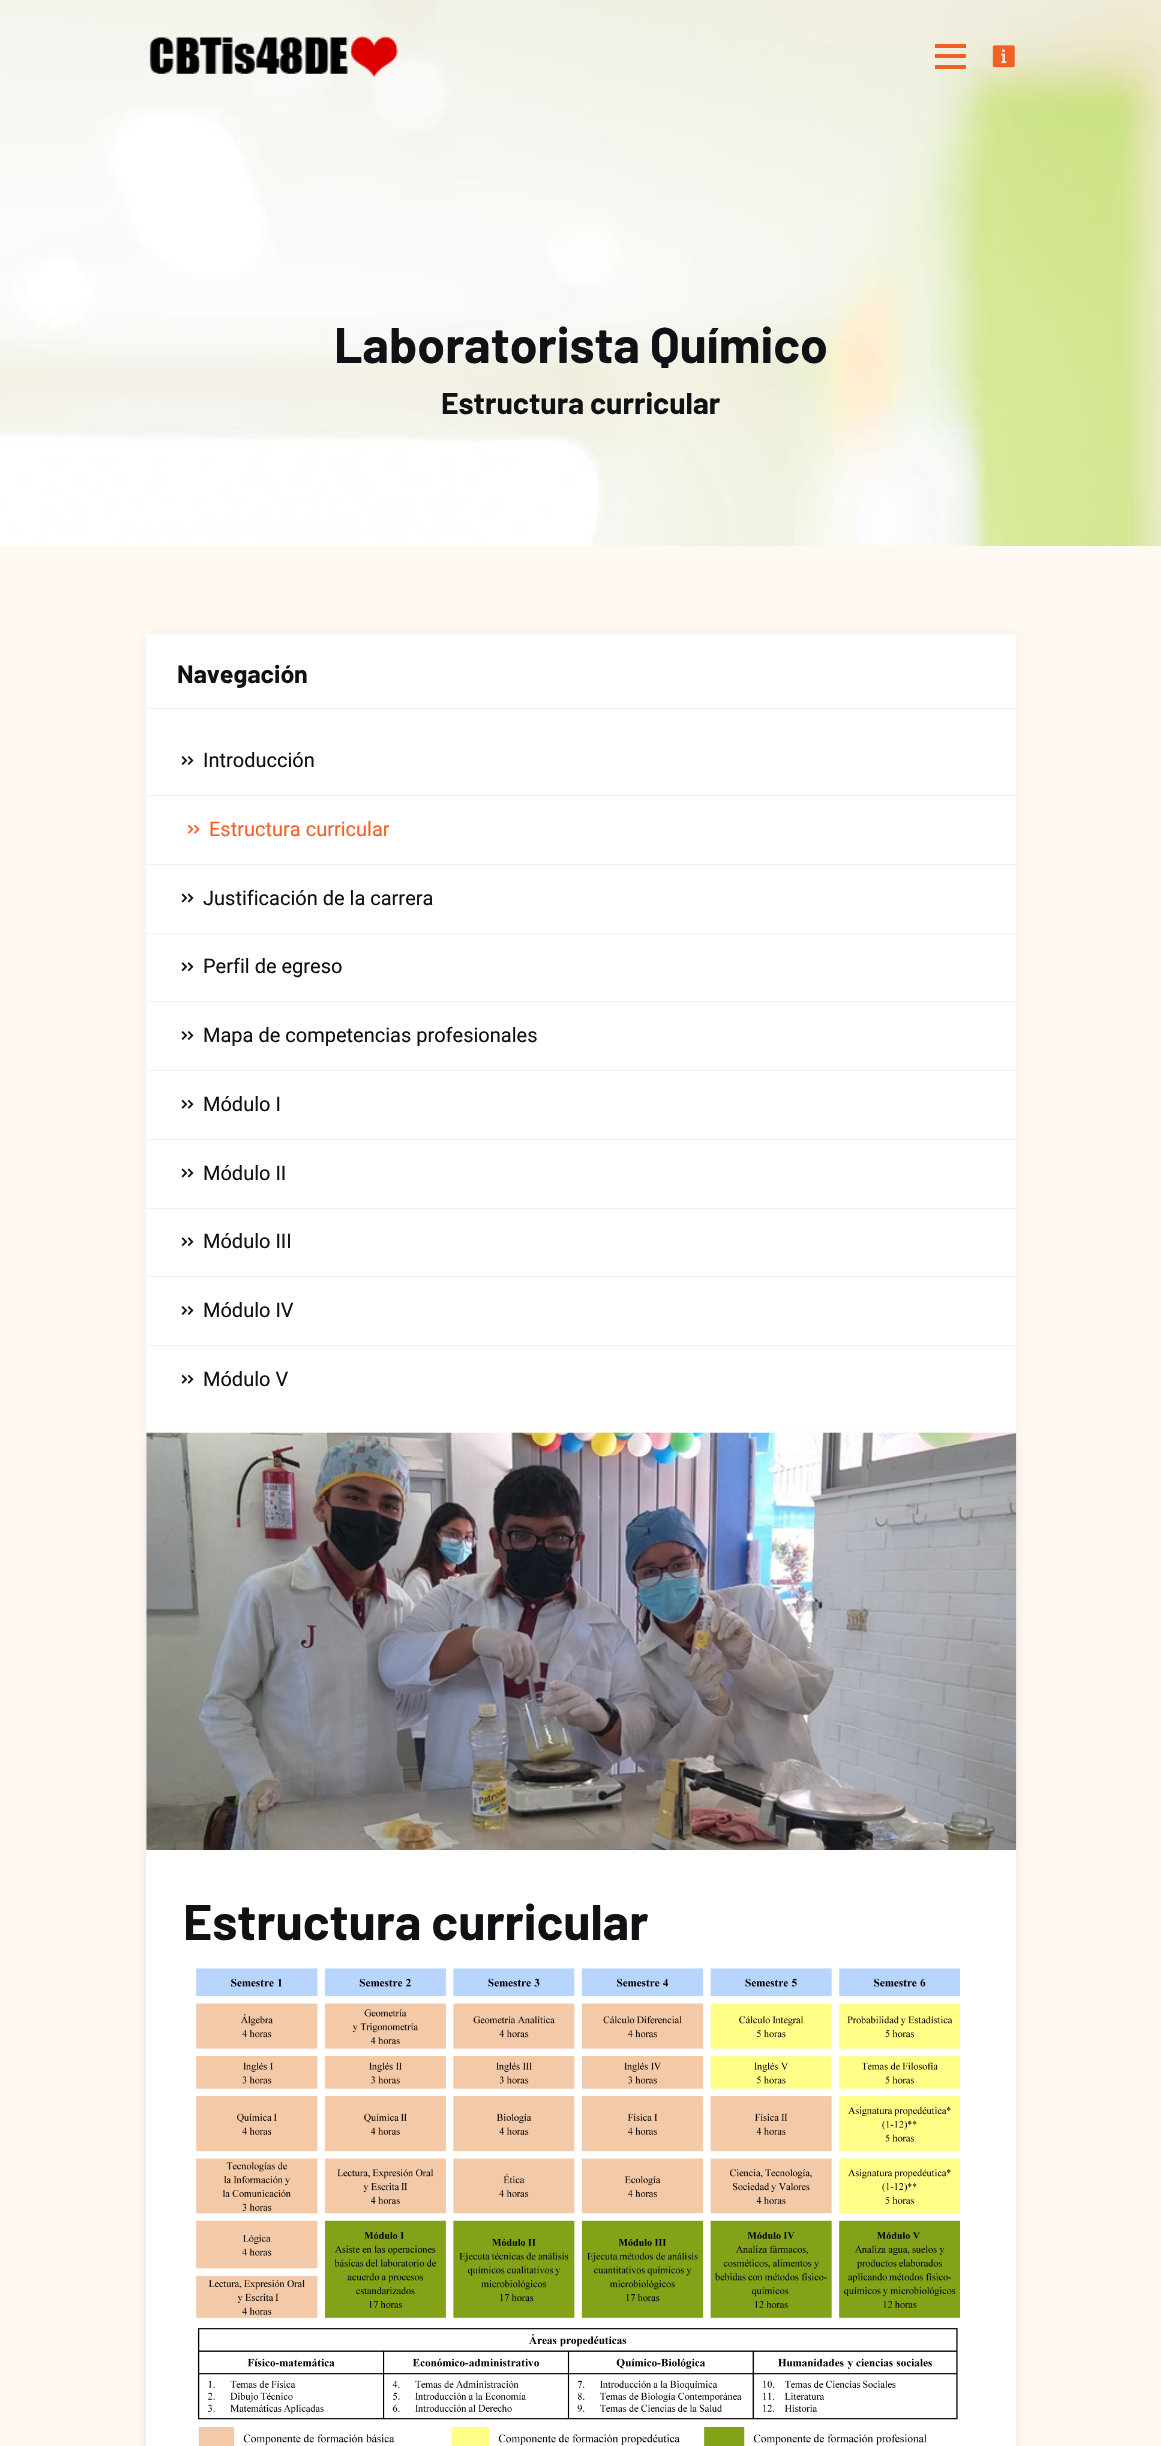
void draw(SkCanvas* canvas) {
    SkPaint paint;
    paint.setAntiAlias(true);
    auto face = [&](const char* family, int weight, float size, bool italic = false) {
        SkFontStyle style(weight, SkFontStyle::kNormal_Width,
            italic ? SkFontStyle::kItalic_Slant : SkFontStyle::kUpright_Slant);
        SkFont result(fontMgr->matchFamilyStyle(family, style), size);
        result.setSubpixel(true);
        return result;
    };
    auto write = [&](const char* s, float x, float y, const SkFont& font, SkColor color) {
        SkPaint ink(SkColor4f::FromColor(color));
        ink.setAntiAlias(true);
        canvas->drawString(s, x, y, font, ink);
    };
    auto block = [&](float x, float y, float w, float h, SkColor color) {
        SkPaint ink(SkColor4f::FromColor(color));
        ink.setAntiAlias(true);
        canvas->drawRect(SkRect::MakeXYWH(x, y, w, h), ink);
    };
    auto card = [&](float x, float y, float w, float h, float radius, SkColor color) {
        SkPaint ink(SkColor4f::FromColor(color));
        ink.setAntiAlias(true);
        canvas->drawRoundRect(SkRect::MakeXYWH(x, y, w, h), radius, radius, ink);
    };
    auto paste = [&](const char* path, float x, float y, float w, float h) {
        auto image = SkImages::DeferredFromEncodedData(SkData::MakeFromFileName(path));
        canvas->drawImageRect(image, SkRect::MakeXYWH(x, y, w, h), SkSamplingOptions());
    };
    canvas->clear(SK_ColorWHITE);
    paste("pic3.png", 0, 0, 1161, 546);
    paste("pic1.png", 149, 36, 249, 42);
    block(935, 44, 31, 4, SkColorSetRGB(241, 97, 38));
    block(935, 54, 31, 4, SkColorSetRGB(241, 97, 38));
    block(935, 65, 31, 4, SkColorSetRGB(241, 97, 38));
    paste("pic2.png", 992, 45, 23, 23);
    auto kFont1 = face("Barlow", 700, 50);
    write("Laboratorista Químico", 334, 363, kFont1, SkColorSetRGB(16, 17, 21));
    auto kFont2 = face("Barlow", 700, 30);
    write("Estructura curricular", 441, 414, kFont2, SkColorSetRGB(16, 17, 21));
    block(0, 546, 1161, 1900, SkColorSetRGB(255, 249, 241));
    paint.setColor(SkColorSetARGB(26, 136, 136, 136));
    paint.setMaskFilter(SkMaskFilter::MakeBlur(kNormal_SkBlurStyle, 6));
    canvas->drawRect(SkRect::MakeXYWH(146, 634, 870, 799), paint);
    paint.setMaskFilter(nullptr);
    block(146, 634, 870, 799, SK_ColorWHITE);
    block(146, 708, 870, 1, SkColorSetRGB(236, 240, 243));
    auto kFont3 = face("Barlow", 700, 25);
    write("Navegación", 177, 683, kFont3, SkColorSetRGB(16, 17, 21));
    block(146, 795, 870, 1, SkColorSetRGB(236, 240, 243));
    paste("pic4.png", 181, 756, 13, 9);
    auto kFont4 = face("Roboto", 400, 20);
    write("Introducción", 203, 767, kFont4, SkColorSetRGB(16, 17, 21));
    block(146, 864, 870, 1, SkColorSetRGB(236, 240, 243));
    paste("pic5.png", 187, 824, 13, 10);
    write("Estructura curricular", 209, 836, kFont4, SkColorSetRGB(241, 97, 38));
    block(146, 933, 870, 1, SkColorSetRGB(236, 240, 243));
    paste("pic6.png", 181, 893, 13, 10);
    write("Justificación de la carrera", 203, 905, kFont4, SkColorSetRGB(16, 17, 21));
    block(146, 1001, 870, 1, SkColorSetRGB(236, 240, 243));
    paste("pic7.png", 181, 962, 13, 10);
    write("Perfil de egreso", 203, 973, kFont4, SkColorSetRGB(16, 17, 21));
    block(146, 1070, 870, 1, SkColorSetRGB(236, 240, 243));
    paste("pic4.png", 181, 1031, 13, 9);
    write("Mapa de competencias profesionales", 203, 1042, kFont4, SkColorSetRGB(16, 17, 21));
    block(146, 1139, 870, 1, SkColorSetRGB(236, 240, 243));
    paste("pic8.png", 181, 1099, 13, 10);
    write("Módulo I", 203, 1111, kFont4, SkColorSetRGB(16, 17, 21));
    block(146, 1208, 870, 1, SkColorSetRGB(236, 240, 243));
    paste("pic6.png", 181, 1168, 13, 10);
    write("Módulo II", 203, 1180, kFont4, SkColorSetRGB(16, 17, 21));
    block(146, 1276, 870, 1, SkColorSetRGB(236, 240, 243));
    paste("pic7.png", 181, 1237, 13, 10);
    write("Módulo III", 203, 1248, kFont4, SkColorSetRGB(16, 17, 21));
    block(146, 1345, 870, 1, SkColorSetRGB(236, 240, 243));
    paste("pic4.png", 181, 1306, 13, 9);
    write("Módulo IV", 203, 1317, kFont4, SkColorSetRGB(16, 17, 21));
    paste("pic8.png", 181, 1374, 13, 10);
    write("Módulo V", 203, 1386, kFont4, SkColorSetRGB(16, 17, 21));
    paint.setColor(SkColorSetARGB(26, 16, 17, 21));
    paint.setMaskFilter(SkMaskFilter::MakeBlur(kNormal_SkBlurStyle, 6));
    canvas->drawRoundRect(SkRect::MakeXYWH(146, 1439, 870, 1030), 5, 5, paint);
    paint.setMaskFilter(nullptr);
    card(146, 1433, 870, 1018, 5, SK_ColorWHITE);
    paste("pic9.png", 146, 1432, 871, 418);
    write("Estructura curricular", 183, 1940, kFont1, SkColorSetRGB(16, 17, 21));
    paste("pic10.png", 196, 1968, 764, 478);
}
